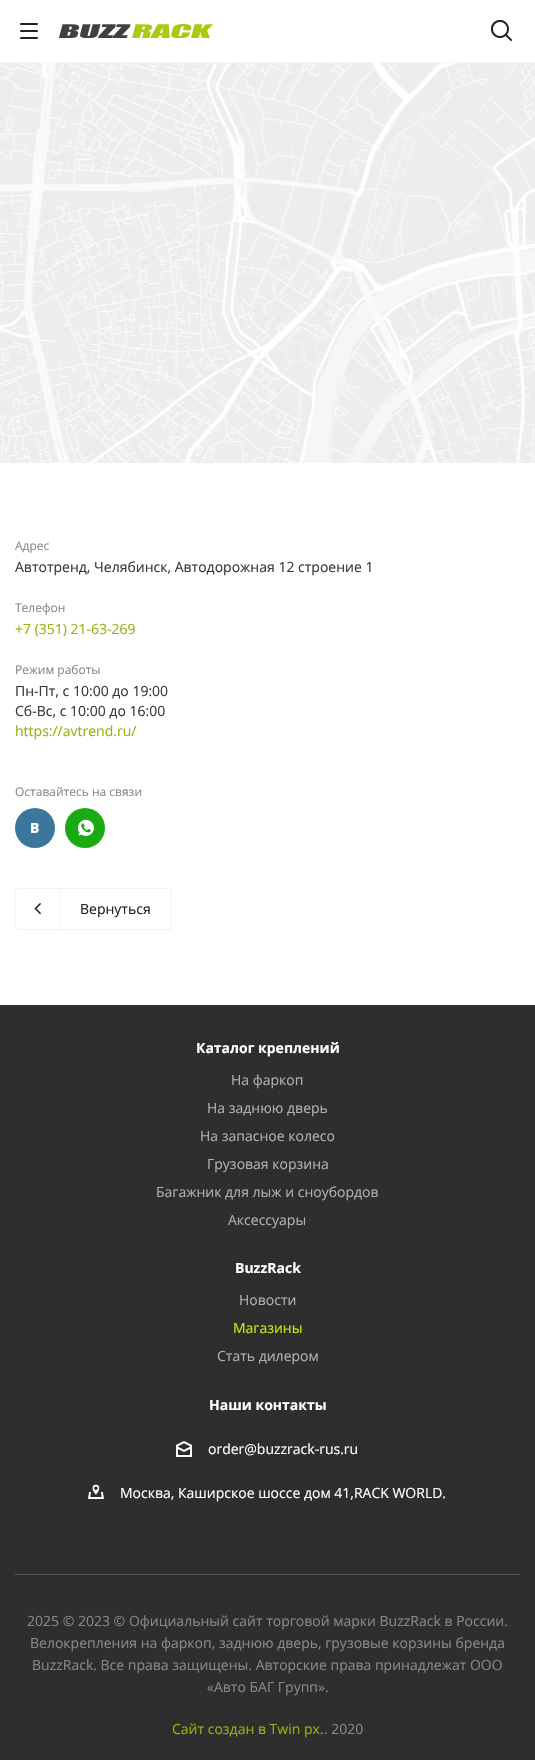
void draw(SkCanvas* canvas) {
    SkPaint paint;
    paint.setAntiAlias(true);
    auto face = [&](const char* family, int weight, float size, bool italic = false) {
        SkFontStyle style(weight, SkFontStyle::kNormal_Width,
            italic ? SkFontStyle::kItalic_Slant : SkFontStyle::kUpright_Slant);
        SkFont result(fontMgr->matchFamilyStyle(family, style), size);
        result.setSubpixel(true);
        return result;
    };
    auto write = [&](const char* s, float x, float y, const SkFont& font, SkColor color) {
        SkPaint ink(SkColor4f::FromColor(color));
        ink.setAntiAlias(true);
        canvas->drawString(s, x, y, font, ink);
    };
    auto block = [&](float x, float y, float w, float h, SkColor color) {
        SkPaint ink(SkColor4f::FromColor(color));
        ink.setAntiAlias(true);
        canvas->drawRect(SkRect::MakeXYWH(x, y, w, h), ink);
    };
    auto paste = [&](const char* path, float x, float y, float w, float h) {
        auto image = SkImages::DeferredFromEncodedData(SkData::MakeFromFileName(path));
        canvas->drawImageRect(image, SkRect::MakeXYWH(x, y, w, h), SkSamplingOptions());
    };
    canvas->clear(SK_ColorWHITE);
    block(0, 62, 535, 1, SkColorSetRGB(245, 245, 245));
    paste("pic1.png", 20, 23, 18, 16);
    paste("pic2.png", 58, 24, 155, 14);
    paste("pic3.png", 491, 20, 21, 21);
    paste("pic4.png", 0, 63, 535, 400);
    auto kFont1 = face("Open Sans", 400, 12);
    write("Адрес", 15, 550, kFont1, SkColorSetRGB(136, 136, 136));
    auto kFont2 = face("Open Sans", 400, 14);
    write("Автотренд, Челябинск, Автодорожная 12 строение 1", 15, 572, kFont2, SkColorSetRGB(56, 56, 56));
    write("Телефон", 15, 612, kFont1, SkColorSetRGB(136, 136, 136));
    write("+7 (351) 21-63-269", 15, 634, kFont2, SkColorSetRGB(151, 178, 12));
    write("Режим работы", 15, 674, kFont1, SkColorSetRGB(136, 136, 136));
    write("Пн-Пт, с 10:00 до 19:00", 15, 696, kFont2, SkColorSetRGB(56, 56, 56));
    write("Сб-Вс, с 10:00 до 16:00", 15, 716, kFont2, SkColorSetRGB(56, 56, 56));
    write("https://avtrend.ru/", 15, 736, kFont2, SkColorSetRGB(151, 178, 12));
    write("Оставайтесь на связи", 15, 796, kFont1, SkColorSetRGB(136, 136, 136));
    paste("pic5.png", 15, 808, 40, 40);
    paste("pic6.png", 65, 808, 40, 40);
    paint.setStyle(SkPaint::kStroke_Style);
    paint.setStrokeWidth(1);
    paint.setColor(SkColorSetRGB(242, 242, 242));
    canvas->drawRoundRect(SkRect::MakeXYWH(15.5f, 888.5f, 156, 41), 2.5f, 2.5f, paint);
    paste("pic7.png", 34, 903, 7, 12);
    block(60, 889, 1, 40, SkColorSetRGB(245, 245, 245));
    write("Вернуться", 80, 914, kFont2, SkColorSetRGB(34, 34, 34));
    block(0, 1005, 535, 755, SkColorSetRGB(46, 46, 47));
    auto kFont3 = face("Open Sans", 700, 14);
    write("Каталог креплений", 196, 1053, kFont3, SK_ColorWHITE);
    write("На фаркоп", 231, 1085, kFont2, SkColorSetRGB(176, 176, 176));
    write("На заднюю дверь", 207, 1113, kFont2, SkColorSetRGB(176, 176, 176));
    write("На запасное колесо", 200, 1141, kFont2, SkColorSetRGB(176, 176, 176));
    write("Грузовая корзина", 207, 1169, kFont2, SkColorSetRGB(176, 176, 176));
    write("Багажник для лыж и сноубордов", 156, 1197, kFont2, SkColorSetRGB(176, 176, 176));
    write("Аксессуары", 228, 1225, kFont2, SkColorSetRGB(176, 176, 176));
    write("BuzzRack", 235, 1273, kFont3, SK_ColorWHITE);
    write("Новости", 239, 1305, kFont2, SkColorSetRGB(176, 176, 176));
    write("Магазины", 233, 1333, kFont2, SkColorSetRGB(195, 229, 17));
    write("Стать дилером", 217, 1361, kFont2, SkColorSetRGB(176, 176, 176));
    write("Наши контакты", 209, 1410, kFont3, SK_ColorWHITE);
    paste("pic8.png", 176, 1441, 16, 16);
    write("order@buzzrack-rus.ru", 208, 1454, kFont2, SK_ColorWHITE);
    paste("pic9.png", 88, 1484, 16, 15);
    write("Москва, Каширское шоссе дом 41,RACK WORLD.", 120, 1498, kFont2, SK_ColorWHITE);
    block(15, 1574, 505, 1, SkColorSetRGB(85, 85, 85));
    write("2025 © 2023 © Официальный сайт торговой марки BuzzRack в России.", 27, 1626, kFont2, SkColorSetRGB(136, 136, 136));
    write("Велокрепления на фаркоп, заднюю дверь, грузовые корзины бренда", 30, 1648, kFont2, SkColorSetRGB(136, 136, 136));
    write("BuzzRack. Все права защищены. Авторские права принадлежат ООО", 32, 1670, kFont2, SkColorSetRGB(136, 136, 136));
    write("«Авто БАГ Групп».", 207, 1692, kFont2, SkColorSetRGB(136, 136, 136));
    write("Сайт создан в Twin px.", 172, 1734, kFont2, SkColorSetRGB(151, 178, 12));
    write(". 2020", 324, 1734, kFont2, SkColorSetRGB(136, 136, 136));
}
